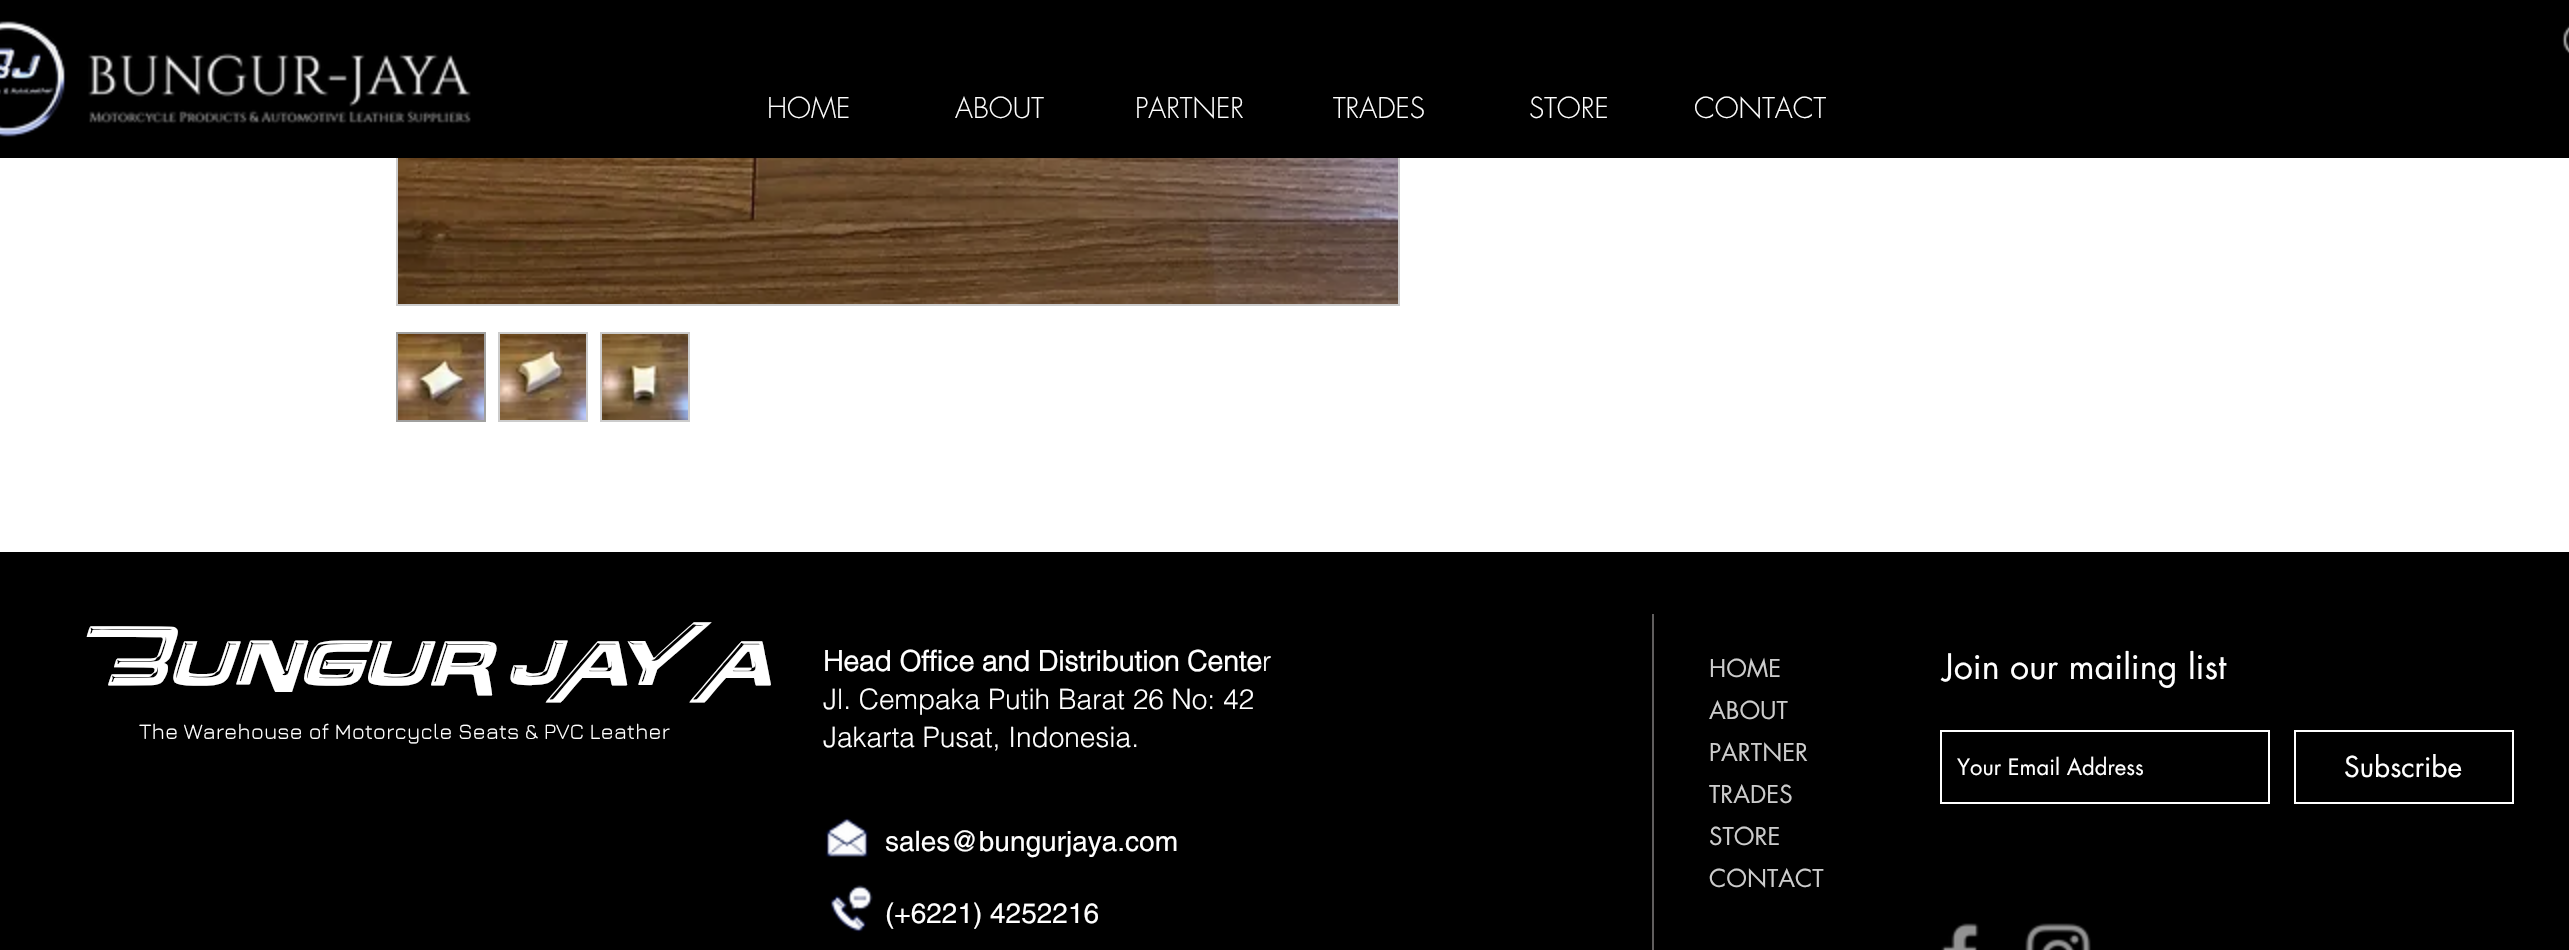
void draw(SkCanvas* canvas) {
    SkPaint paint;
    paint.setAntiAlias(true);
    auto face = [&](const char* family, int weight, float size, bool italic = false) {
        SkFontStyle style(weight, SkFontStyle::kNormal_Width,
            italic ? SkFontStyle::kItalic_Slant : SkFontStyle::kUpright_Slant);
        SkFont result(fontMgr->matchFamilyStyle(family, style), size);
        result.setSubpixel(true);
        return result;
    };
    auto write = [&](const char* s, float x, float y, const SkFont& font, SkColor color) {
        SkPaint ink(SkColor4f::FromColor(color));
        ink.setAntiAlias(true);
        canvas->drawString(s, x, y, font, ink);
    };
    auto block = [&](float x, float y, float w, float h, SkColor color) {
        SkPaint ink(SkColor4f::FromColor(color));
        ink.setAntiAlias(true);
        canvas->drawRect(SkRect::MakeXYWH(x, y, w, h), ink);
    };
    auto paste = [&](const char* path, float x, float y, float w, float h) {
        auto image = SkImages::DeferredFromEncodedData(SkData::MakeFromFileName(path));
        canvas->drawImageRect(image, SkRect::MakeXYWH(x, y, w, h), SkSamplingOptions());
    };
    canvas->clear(SK_ColorWHITE);
    paint.setStyle(SkPaint::kStroke_Style);
    paint.setStrokeWidth(2);
    paint.setColor(SkColorSetRGB(204, 204, 204));
    canvas->drawRect(SkRect::MakeXYWH(397, -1, 1002, 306), paint);
    paste("pic1.png", 398, 158, 1000, 146);
    paint.setColor(SkColorSetRGB(160, 160, 159));
    canvas->drawRect(SkRect::MakeXYWH(397, 333, 88, 88), paint);
    paste("pic2.png", 398, 334, 86, 86);
    block(498, 332, 90, 90, SkColorSetRGB(204, 204, 204));
    paste("pic3.png", 500, 334, 86, 86);
    block(600, 332, 90, 90, SkColorSetRGB(204, 204, 204));
    paste("pic4.png", 602, 334, 86, 86);
    block(0, 0, 2569, 158, SK_ColorBLACK);
    paste("pic5.png", 0, 21, 66, 116);
    paste("pic6.png", 2562, 25, 7, 29);
    paste("pic7.png", 88, 53, 383, 71);
    auto kFont1 = face("futura", 300, 28);
    write("HOME", 767, 118, kFont1, SK_ColorWHITE);
    write("ABOUT", 955, 118, kFont1, SK_ColorWHITE);
    write("PARTNER", 1135, 118, kFont1, SK_ColorWHITE);
    write("TRADES", 1333, 118, kFont1, SK_ColorWHITE);
    write("STORE", 1529, 118, kFont1, SK_ColorWHITE);
    write("CONTACT", 1694, 118, kFont1, SK_ColorWHITE);
    block(0, 552, 2569, 398, SK_ColorBLACK);
    auto kFont2 = face("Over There", 400, 46);
    write("BUNGUR JAYA", 89, 677, kFont2, SK_ColorWHITE);
    auto kFont3 = face("helvetica", 700, 28);
    write("Head Office and Distribution Cente", 823, 671, kFont3, SK_ColorWHITE);
    auto kFont4 = face("helvetica", 300, 28);
    write("r", 1262, 671, kFont4, SK_ColorWHITE);
    write("Jl. Cempaka Putih Barat 26 No: 42", 823, 709, kFont4, SK_ColorWHITE);
    write("Jakarta Pusat, Indonesia.", 823, 747, kFont4, SK_ColorWHITE);
    block(1652, 614, 2, 336, SkColorSetRGB(96, 94, 94));
    auto kFont5 = face("futura", 400, 24);
    write("HOME", 1709, 677, kFont5, SkColorSetRGB(204, 204, 204));
    write("ABOUT", 1709, 719, kFont5, SkColorSetRGB(204, 204, 204));
    write("PARTNER", 1709, 761, kFont5, SkColorSetRGB(204, 204, 204));
    write("TRADES", 1709, 803, kFont5, SkColorSetRGB(204, 204, 204));
    write("STORE", 1709, 845, kFont5, SkColorSetRGB(204, 204, 204));
    write("CONTACT", 1709, 887, kFont5, SkColorSetRGB(204, 204, 204));
    auto kFont6 = face("futura", 400, 34);
    write("Join our mailing list", 1943, 679, kFont6, SK_ColorWHITE);
    paint.setColor(SK_ColorWHITE);
    canvas->drawRect(SkRect::MakeXYWH(1941, 731, 328, 72), paint);
    auto kFont7 = face("futura", 400, 22);
    write("Your Email Address", 1957, 775, kFont7, SK_ColorWHITE);
    canvas->drawRect(SkRect::MakeXYWH(2295, 731, 218, 72), paint);
    auto kFont8 = face("futura", 400, 28);
    write("Subscribe", 2344, 777, kFont8, SK_ColorWHITE);
    auto kFont9 = face("Jura", 400, 22);
    write("The Warehouse of Motorcycle Seats & PVC Leather", 139, 739, kFont9, SK_ColorWHITE);
    paste("pic8.png", 825, 817, 44, 41);
    auto kFont10 = face("helvetica", 400, 28);
    write("sales@bungurjaya.com", 885, 851, kFont10, SK_ColorWHITE);
    write("(+6221) 4252216", 885, 923, kFont10, SK_ColorWHITE);
    paste("pic9.png", 829, 885, 44, 48);
    paste("pic10.png", 1941, 923, 38, 27);
    paste("pic11.png", 2025, 923, 66, 27);
}
